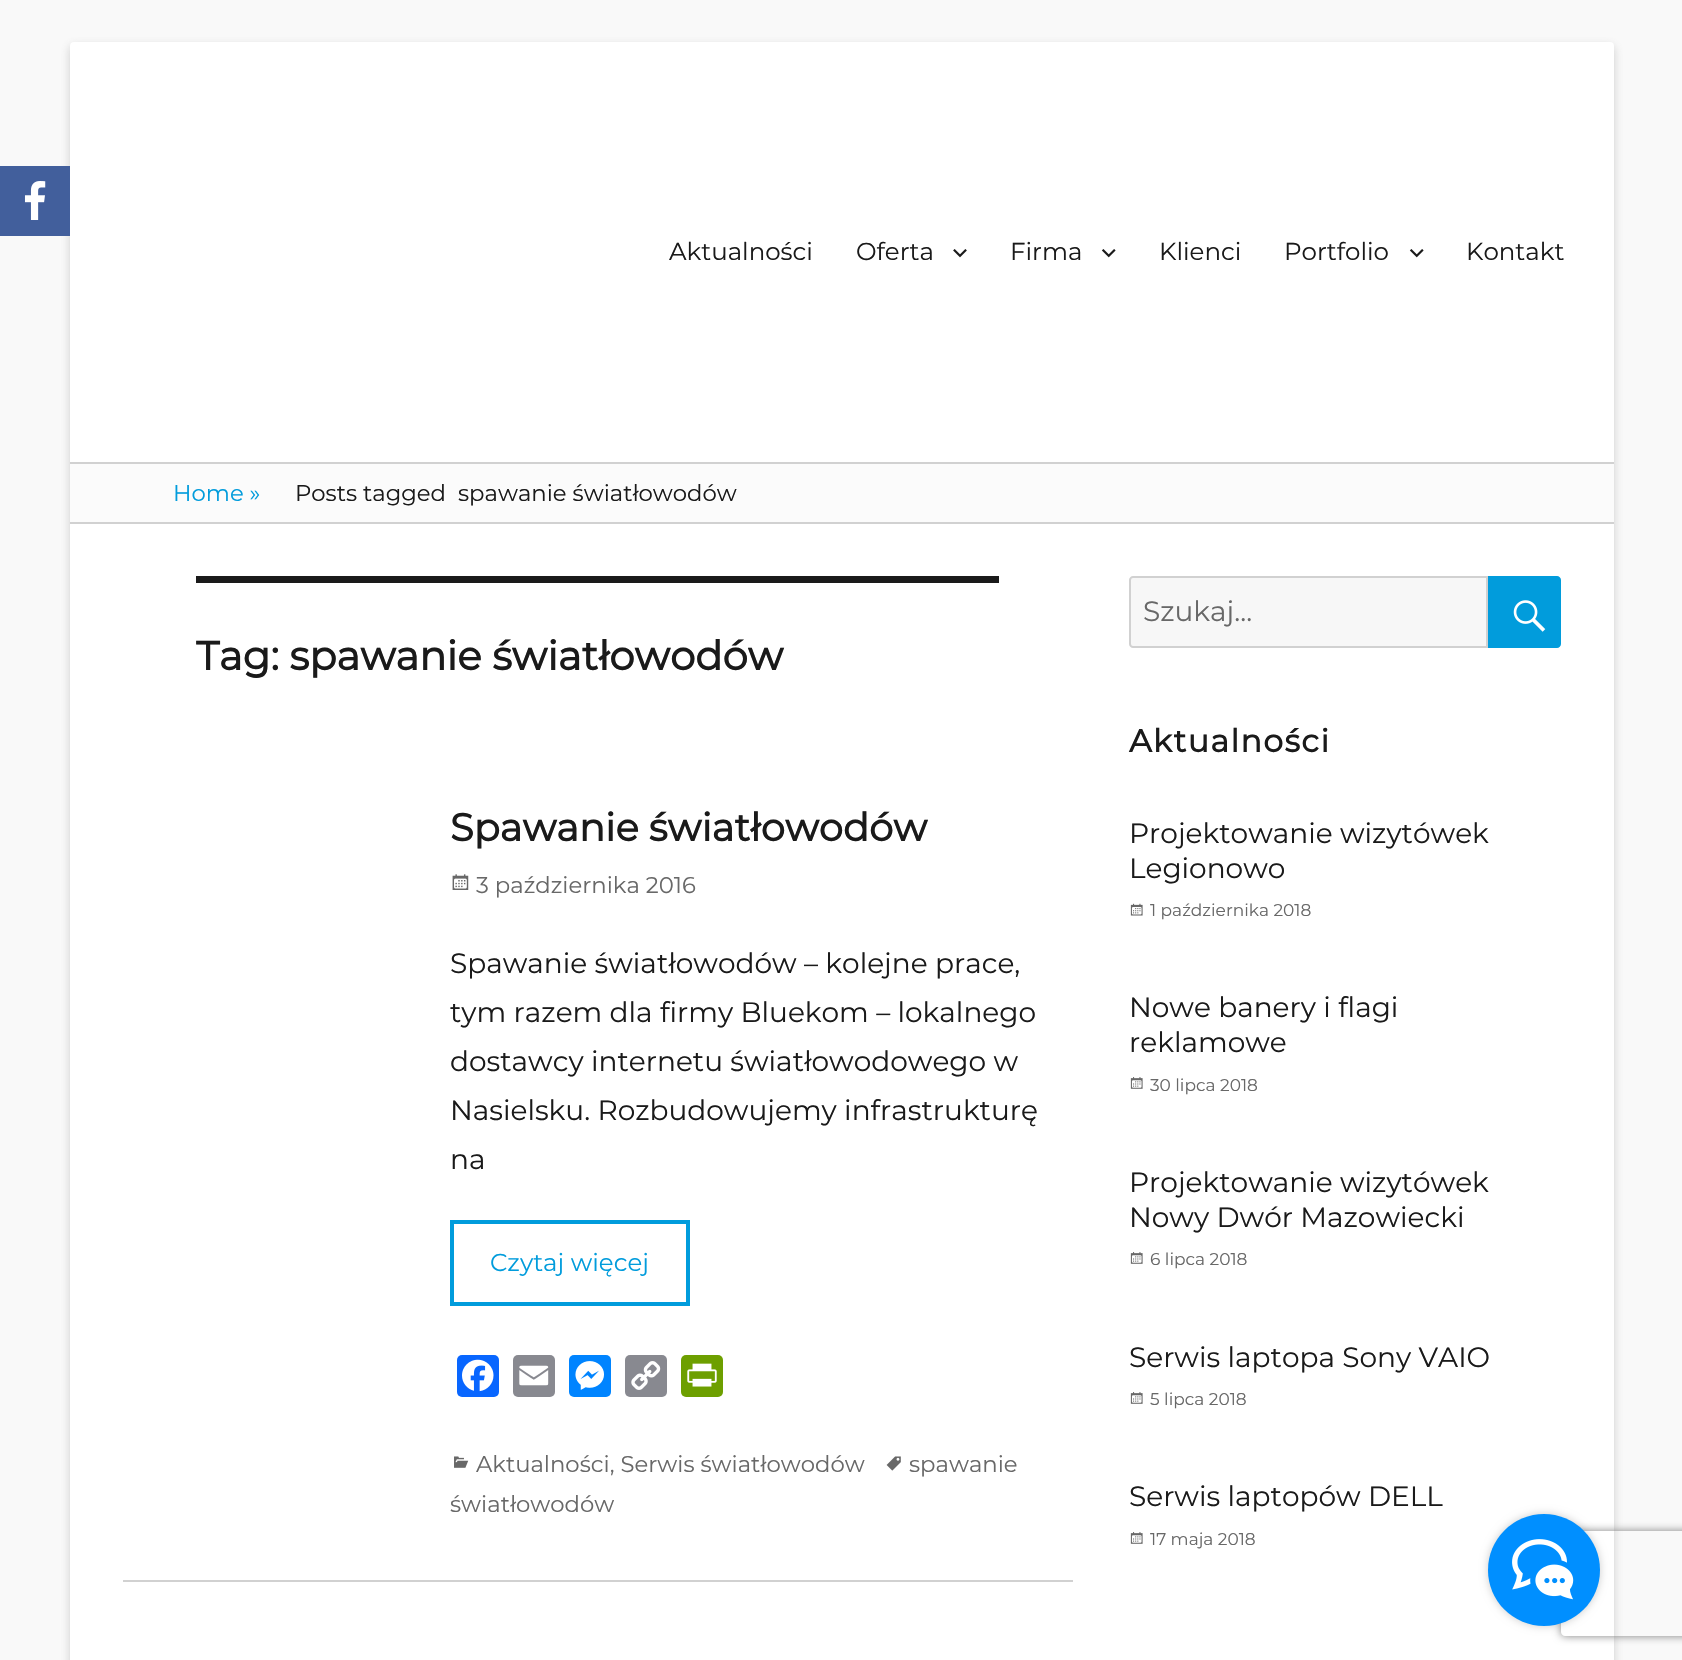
void draw(SkCanvas* canvas) {
    SkPaint paint;
    paint.setAntiAlias(true);
    auto face = [&](const char* family, int weight, float size, bool italic = false) {
        SkFontStyle style(weight, SkFontStyle::kNormal_Width,
            italic ? SkFontStyle::kItalic_Slant : SkFontStyle::kUpright_Slant);
        SkFont result(fontMgr->matchFamilyStyle(family, style), size);
        result.setSubpixel(true);
        return result;
    };
    auto write = [&](const char* s, float x, float y, const SkFont& font, SkColor color) {
        SkPaint ink(SkColor4f::FromColor(color));
        ink.setAntiAlias(true);
        canvas->drawString(s, x, y, font, ink);
    };
    auto writeSpaced = [&](const char* s, float x, float y, const SkFont& font, const SkPaint& ink, float letter, float word) {
        std::vector<SkGlyphID> glyphs(font.countText(s, strlen(s), SkTextEncoding::kUTF8));
        std::vector<float> xs(glyphs.size());
        font.textToGlyphs(s, strlen(s), SkTextEncoding::kUTF8, glyphs);
        font.getXPos(glyphs, xs, x);
        float extra = 0;
        for (size_t i = 0; i < glyphs.size(); i++) {
            xs[i] += extra;
            extra += letter + word * (glyphs[i] == font.unicharToGlyph(' '));
        }
        canvas->drawTextBlob(SkTextBlob::MakeFromPosHGlyphs(glyphs, xs, y, font), 0, 0, ink);
    };
    auto block = [&](float x, float y, float w, float h, SkColor color) {
        SkPaint ink(SkColor4f::FromColor(color));
        ink.setAntiAlias(true);
        canvas->drawRect(SkRect::MakeXYWH(x, y, w, h), ink);
    };
    auto card = [&](float x, float y, float w, float h, float radius, SkColor color) {
        SkPaint ink(SkColor4f::FromColor(color));
        ink.setAntiAlias(true);
        canvas->drawRoundRect(SkRect::MakeXYWH(x, y, w, h), radius, radius, ink);
    };
    auto paste = [&](const char* path, float x, float y, float w, float h) {
        auto image = SkImages::DeferredFromEncodedData(SkData::MakeFromFileName(path));
        canvas->drawImageRect(image, SkRect::MakeXYWH(x, y, w, h), SkSamplingOptions());
    };
    canvas->clear(SkColorSetRGB(249, 249, 249));
    paint.setColor(SkColorSetARGB(77, 100, 100, 100));
    paint.setMaskFilter(SkMaskFilter::MakeBlur(kNormal_SkBlurStyle, 5));
    canvas->drawRoundRect(SkRect::MakeXYWH(70, 46, 1544, 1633), 4, 4, paint);
    paint.setMaskFilter(nullptr);
    block(0, 166, 70, 70, SkColorSetRGB(66, 95, 156));
    paste("pic1.png", 24, 181, 22, 39);
    card(70, 42, 1544, 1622, 4, SK_ColorWHITE);
    block(70, 462, 1544, 2, SkColorSetRGB(209, 209, 209));
    auto kFont1 = face("Montserrat", 100, 24.5f);
    write("Aktualności", 669, 260, kFont1, SkColorSetRGB(26, 26, 26));
    write("Oferta", 856, 260, kFont1, SkColorSetRGB(26, 26, 26));
    paste("pic2.png", 953, 249, 14, 9);
    write("Firma", 1010, 260, kFont1, SkColorSetRGB(26, 26, 26));
    paste("pic3.png", 1101, 249, 15, 9);
    write("Klienci", 1159, 260, kFont1, SkColorSetRGB(26, 26, 26));
    write("Portfolio", 1284, 260, kFont1, SkColorSetRGB(26, 26, 26));
    paste("pic3.png", 1409, 249, 15, 9);
    write("Kontakt", 1466, 260, kFont1, SkColorSetRGB(26, 26, 26));
    block(70, 464, 1544, 58, SkColorSetRGB(251, 251, 251));
    block(70, 522, 1544, 2, SkColorSetRGB(209, 209, 209));
    auto kFont2 = face("Montserrat", 100, 22.75f);
    write("Home »", 173, 501, kFont2, SkColorSetRGB(1, 156, 220));
    write("Posts tagged", 295, 501, kFont2, SkColorSetRGB(26, 26, 26));
    write("spawanie światłowodów", 458, 501, kFont2, SkColorSetRGB(26, 26, 26));
    block(196, 576, 803, 7, SkColorSetRGB(26, 26, 26));
    auto kFont3 = face("Montserrat", 700, 40.25f);
    write("Tag: spawanie światłowodów", 196, 670, kFont3, SkColorSetRGB(26, 26, 26));
    block(123, 1580, 950, 2, SkColorSetRGB(209, 209, 209));
    auto kFont4 = face("Montserrat", 700, 38.5f);
    write("Spawanie światłowodów", 450, 841, kFont4, SkColorSetRGB(26, 26, 26));
    paste("pic4.png", 452, 874, 17, 16);
    write("3 października 2016", 476, 893, kFont2, SkColorSetRGB(104, 104, 104));
    auto kFont5 = face("Montserrat", 100, 28);
    write("Spawanie światłowodów – kolejne prace,", 450, 973, kFont5, SkColorSetRGB(26, 26, 26));
    write("tym razem dla firmy Bluekom – lokalnego", 450, 1022, kFont5, SkColorSetRGB(26, 26, 26));
    write("dostawcy internetu światłowodowego w", 450, 1071, kFont5, SkColorSetRGB(26, 26, 26));
    write("Nasielsku. Rozbudowujemy infrastrukturę", 450, 1120, kFont5, SkColorSetRGB(26, 26, 26));
    write("na", 450, 1169, kFont5, SkColorSetRGB(26, 26, 26));
    paint.setStyle(SkPaint::kStroke_Style);
    paint.setStrokeWidth(4);
    paint.setColor(SkColorSetRGB(1, 156, 220));
    canvas->drawRect(SkRect::MakeXYWH(452, 1222, 236, 82), paint);
    write("Czytaj więcej", 490, 1271, kFont1, SkColorSetRGB(1, 156, 220));
    card(457, 1355, 42, 42, 5, SkColorSetRGB(8, 102, 255));
    paste("pic5.png", 462, 1359, 32, 33);
    card(513, 1355, 42, 42, 5, SkColorSetRGB(136, 137, 144));
    paste("pic6.png", 519, 1365, 30, 21);
    card(569, 1355, 42, 42, 5, SkColorSetRGB(0, 132, 255));
    paste("pic7.png", 575, 1361, 29, 29);
    card(625, 1355, 42, 42, 5, SkColorSetRGB(136, 137, 144));
    paste("pic8.png", 631, 1361, 30, 29);
    card(681, 1355, 42, 42, 5, SkColorSetRGB(109, 159, 0));
    paste("pic9.png", 687, 1363, 30, 24);
    paste("pic10.png", 886, 1456, 15, 15);
    write("spawanie", 909, 1472, kFont2, SkColorSetRGB(104, 104, 104));
    write("światłowodów", 450, 1512, kFont2, SkColorSetRGB(104, 104, 104));
    paste("pic11.png", 454, 1456, 15, 12);
    write("Aktualności, Serwis światłowodów", 476, 1472, kFont2, SkColorSetRGB(104, 104, 104));
    paint.setStyle(SkPaint::kFill_Style);
    paint.setColor(SkColorSetRGB(247, 247, 247));
    canvas->drawPath(SkPathBuilder().moveTo(1133, 577).lineTo(1487, 577).lineTo(1487, 647).lineTo(1133, 647).cubicTo(1131.5f, 647, 1130, 645.5f, 1130, 644).lineTo(1130, 580).cubicTo(1130, 578.5f, 1131.5f, 577, 1133, 577).close().detach(), paint);
    paint.setStyle(SkPaint::kStroke_Style);
    paint.setStrokeWidth(2);
    paint.setColor(SkColorSetRGB(209, 209, 209));
    canvas->drawPath(SkPathBuilder().moveTo(1133, 577).lineTo(1487, 577).lineTo(1487, 647).lineTo(1133, 647).cubicTo(1131.5f, 647, 1130, 645.5f, 1130, 644).lineTo(1130, 580).cubicTo(1130, 578.5f, 1131.5f, 577, 1133, 577).close().detach(), paint);
    write("Szukaj...", 1143, 621, kFont5, SkColorSetRGB(104, 104, 104));
    paint.setStyle(SkPaint::kFill_Style);
    paint.setColor(SkColorSetRGB(1, 156, 220));
    canvas->drawPath(SkPathBuilder().moveTo(1490, 578).lineTo(1557, 578).cubicTo(1558, 578, 1559, 579, 1559, 580).lineTo(1559, 644).cubicTo(1559, 645, 1558, 646, 1557, 646).lineTo(1490, 646).close().detach(), paint);
    paint.setStyle(SkPaint::kStroke_Style);
    paint.setStrokeWidth(4);
    canvas->drawPath(SkPathBuilder().moveTo(1490, 578).lineTo(1557, 578).cubicTo(1558, 578, 1559, 579, 1559, 580).lineTo(1559, 644).cubicTo(1559, 645, 1558, 646, 1557, 646).lineTo(1490, 646).close().detach(), paint);
    paste("pic12.png", 1513, 600, 33, 32);
    auto kFont6 = face("Montserrat", 700, 31.5f);
    paint.setStyle(SkPaint::kFill_Style);
    paint.setColor(SkColorSetRGB(26, 26, 26));
    writeSpaced("Aktualności", 1129, 752, kFont6, paint, 1.5f, 0);
    write("Projektowanie wizytówek", 1129, 843, kFont5, SkColorSetRGB(26, 26, 26));
    write("Legionowo", 1129, 878, kFont5, SkColorSetRGB(26, 26, 26));
    paste("pic13.png", 1130, 903, 13, 13);
    auto kFont7 = face("Montserrat", 100, 17);
    write("1 października 2018", 1150, 916, kFont7, SkColorSetRGB(104, 104, 104));
    write("Nowe banery i flagi", 1129, 1017, kFont5, SkColorSetRGB(26, 26, 26));
    write("reklamowe", 1129, 1052, kFont5, SkColorSetRGB(26, 26, 26));
    paste("pic14.png", 1130, 1077, 13, 12);
    write("30 lipca 2018", 1150, 1091, kFont7, SkColorSetRGB(104, 104, 104));
    write("Projektowanie wizytówek", 1129, 1192, kFont5, SkColorSetRGB(26, 26, 26));
    write("Nowy Dwór Mazowiecki", 1129, 1227, kFont5, SkColorSetRGB(26, 26, 26));
    paste("pic14.png", 1130, 1252, 13, 12);
    write("6 lipca 2018", 1150, 1265, kFont7, SkColorSetRGB(104, 104, 104));
    write("Serwis laptopa Sony VAIO", 1129, 1367, kFont5, SkColorSetRGB(26, 26, 26));
    paste("pic14.png", 1130, 1392, 13, 12);
    write("5 lipca 2018", 1150, 1405, kFont7, SkColorSetRGB(104, 104, 104));
    write("Serwis laptopów DELL", 1129, 1506, kFont5, SkColorSetRGB(26, 26, 26));
    paste("pic14.png", 1130, 1532, 13, 12);
    write("17 maja 2018", 1150, 1545, kFont7, SkColorSetRGB(104, 104, 104));
    paint.setColor(SkColorSetARGB(51, 0, 0, 0));
    paint.setMaskFilter(SkMaskFilter::MakeBlur(kNormal_SkBlurStyle, 4.5f));
    canvas->drawRoundRect(SkRect::MakeXYWH(1488, 1514, 112, 112), 56, 56, paint);
    paint.setMaskFilter(nullptr);
    canvas->save();
    canvas->clipPath(SkPathBuilder(SkPathFillType::kEvenOdd).moveTo(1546, 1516).lineTo(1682, 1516).lineTo(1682, 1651).lineTo(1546, 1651).close().moveTo(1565, 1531).lineTo(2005, 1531).cubicTo(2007, 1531, 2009, 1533, 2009, 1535).lineTo(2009, 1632).cubicTo(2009, 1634, 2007, 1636, 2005, 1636).lineTo(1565, 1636).cubicTo(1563, 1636, 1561, 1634, 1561, 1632).lineTo(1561, 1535).cubicTo(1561, 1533, 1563, 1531, 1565, 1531).close().detach(), true);
    paint.setColor(SkColorSetRGB(128, 128, 128));
    paint.setMaskFilter(SkMaskFilter::MakeBlur(kNormal_SkBlurStyle, 4.5f));
    canvas->drawRoundRect(SkRect::MakeXYWH(1561, 1531, 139, 105), 4, 4, paint);
    paint.setMaskFilter(nullptr);
    canvas->restore();
    paint.setColor(SkColorSetRGB(0, 143, 255));
    canvas->drawCircle(1544, 1570, 56, paint);
    paste("pic15.png", 1512, 1539, 62, 61);
}
